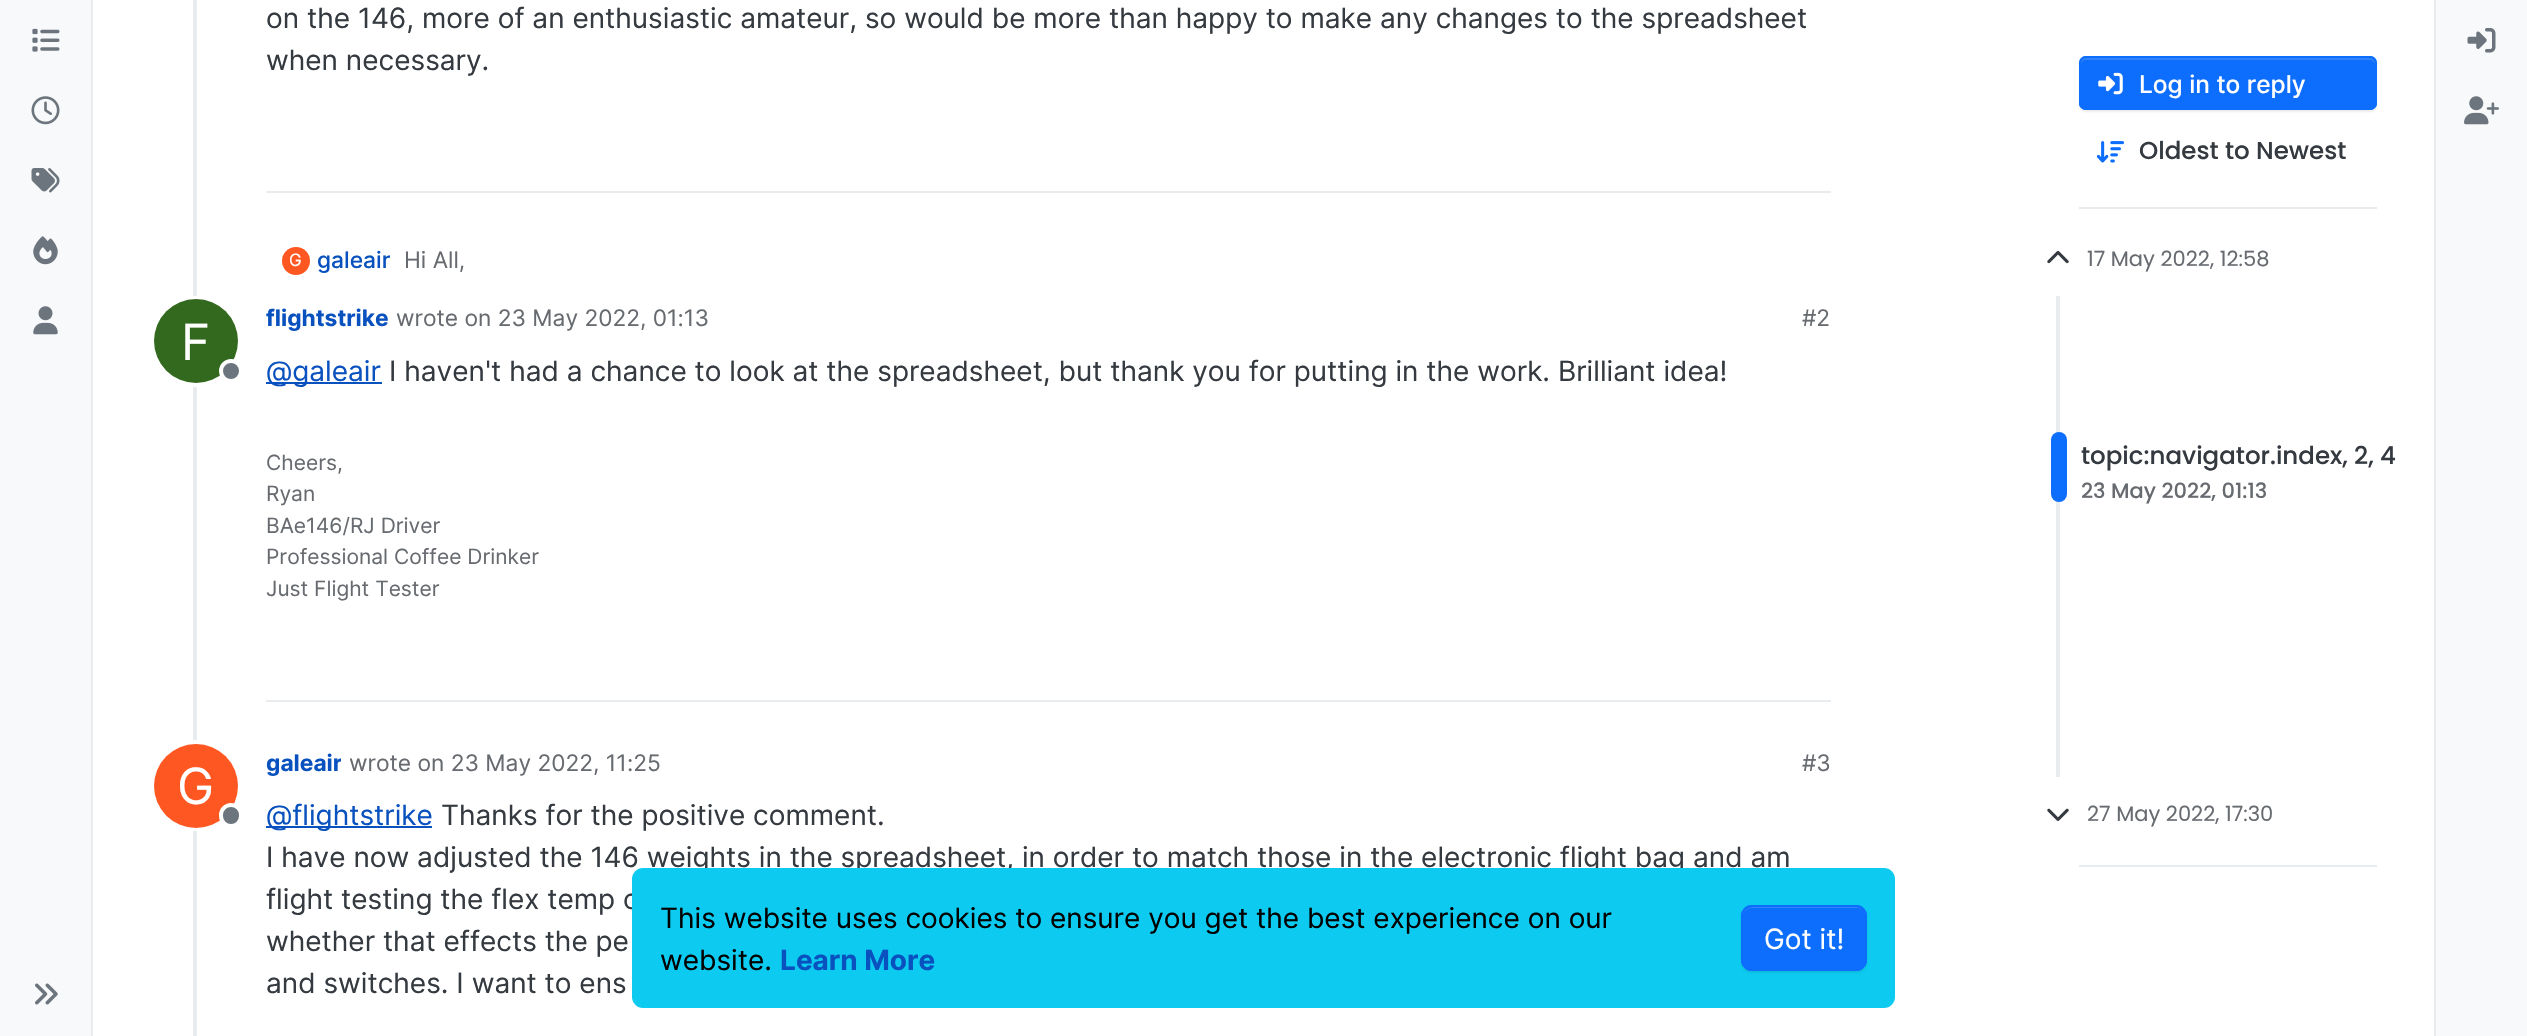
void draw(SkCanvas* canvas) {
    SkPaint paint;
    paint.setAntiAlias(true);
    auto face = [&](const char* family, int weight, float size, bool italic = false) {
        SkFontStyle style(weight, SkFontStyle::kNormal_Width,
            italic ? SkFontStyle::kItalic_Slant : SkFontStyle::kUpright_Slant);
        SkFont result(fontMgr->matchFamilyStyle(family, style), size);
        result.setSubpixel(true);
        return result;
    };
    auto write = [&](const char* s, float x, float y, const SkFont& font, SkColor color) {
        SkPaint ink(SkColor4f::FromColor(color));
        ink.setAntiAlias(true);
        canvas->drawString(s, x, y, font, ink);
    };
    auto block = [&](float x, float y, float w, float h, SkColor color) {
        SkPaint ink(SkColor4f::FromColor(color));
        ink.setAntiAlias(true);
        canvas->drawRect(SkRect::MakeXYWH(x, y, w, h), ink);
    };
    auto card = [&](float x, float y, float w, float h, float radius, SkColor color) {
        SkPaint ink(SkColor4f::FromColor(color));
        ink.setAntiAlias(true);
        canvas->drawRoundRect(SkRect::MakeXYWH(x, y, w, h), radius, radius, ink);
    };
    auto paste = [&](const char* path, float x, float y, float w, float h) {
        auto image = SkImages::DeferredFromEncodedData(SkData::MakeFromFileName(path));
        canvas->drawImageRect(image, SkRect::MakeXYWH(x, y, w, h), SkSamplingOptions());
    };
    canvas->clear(SK_ColorWHITE);
    block(0, 0, 91, 1036, SkColorSetRGB(248, 249, 250));
    block(91, 0, 2, 1036, SkColorSetRGB(233, 236, 239));
    paste("pic1.png", 32, 28, 28, 24);
    paste("pic2.png", 31, 96, 29, 29);
    paste("pic3.png", 31, 168, 29, 25);
    paste("pic4.png", 33, 236, 25, 29);
    paste("pic5.png", 33, 306, 25, 29);
    paste("pic6.png", 35, 983, 23, 22);
    block(193, 0, 4, 1036, SkColorSetRGB(233, 236, 239));
    auto kFont1 = face("Inter", 400, 28);
    write("on the 146, more of an enthusiastic amateur, so would be more than happy to make any changes to the spreadsheet", 266, 28, kFont1, SkColorSetRGB(52, 58, 64));
    write("when necessary.", 266, 70, kFont1, SkColorSetRGB(52, 58, 64));
    block(266, 191, 1565, 2, SkColorSetRGB(233, 236, 239));
    paint.setColor(SkColorSetRGB(255, 87, 34));
    canvas->drawCircle(296, 261, 14, paint);
    auto kFont2 = face("Inter", 400, 17);
    write("G", 289, 266, kFont2, SK_ColorWHITE);
    auto kFont3 = face("Inter", 500, 22.75f);
    write("galeair", 317, 268, kFont3, SkColorSetRGB(9, 81, 190));
    auto kFont4 = face("Inter", 400, 22.75f);
    write("Hi All,", 404, 268, kFont4, SkColorSetRGB(103, 107, 112));
    paint.setStyle(SkPaint::kStroke_Style);
    paint.setStrokeWidth(4);
    paint.setColor(SK_ColorWHITE);
    canvas->drawCircle(196.5f, 341.5f, 43.5f, paint);
    paint.setStyle(SkPaint::kFill_Style);
    paint.setColor(SkColorSetRGB(51, 105, 30));
    canvas->drawCircle(196, 341, 42, paint);
    auto kFont5 = face("Inter", 400, 50);
    write("F", 181, 360, kFont5, SK_ColorWHITE);
    paint.setColor(SkColorSetRGB(108, 117, 125));
    canvas->drawCircle(231, 371, 10, paint);
    paint.setStyle(SkPaint::kStroke_Style);
    paint.setColor(SK_ColorWHITE);
    canvas->drawCircle(231, 371, 10, paint);
    auto kFont6 = face("Inter", 700, 22.75f);
    write("flightstrike", 266, 326, kFont6, SkColorSetRGB(9, 81, 190));
    write("wrote on 23 May 2022, 01:13", 396, 326, kFont4, SkColorSetRGB(103, 107, 112));
    write("#2", 1802, 326, kFont4, SkColorSetRGB(103, 107, 112));
    block(266, 382, 116, 2, SkColorSetRGB(9, 81, 190));
    write("@galeair", 266, 381, kFont1, SkColorSetRGB(9, 81, 190));
    write("I haven't had a chance to look at the spreadsheet, but thank you for putting in the work. Brilliant idea!", 389, 381, kFont1, SkColorSetRGB(52, 58, 64));
    block(266, 700, 1565, 2, SkColorSetRGB(233, 236, 239));
    auto kFont7 = face("Inter", 400, 21);
    write("Cheers,", 266, 470, kFont7, SkColorSetRGB(103, 107, 112));
    write("Ryan", 266, 501, kFont7, SkColorSetRGB(103, 107, 112));
    write("BAe146/RJ Driver", 266, 533, kFont7, SkColorSetRGB(103, 107, 112));
    write("Professional Coffee Drinker", 266, 564, kFont7, SkColorSetRGB(103, 107, 112));
    write("Just Flight Tester", 266, 596, kFont7, SkColorSetRGB(103, 107, 112));
    canvas->drawCircle(196.5f, 785.5f, 43.5f, paint);
    paint.setStyle(SkPaint::kFill_Style);
    paint.setColor(SkColorSetRGB(255, 87, 34));
    canvas->drawCircle(196, 786, 42, paint);
    write("G", 177, 804, kFont5, SK_ColorWHITE);
    paint.setColor(SkColorSetRGB(108, 117, 125));
    canvas->drawRoundRect(SkRect::MakeXYWH(221, 805, 20, 21), 10, 10, paint);
    paint.setStyle(SkPaint::kStroke_Style);
    paint.setColor(SK_ColorWHITE);
    canvas->drawRoundRect(SkRect::MakeXYWH(221, 805, 20, 21), 10, 10, paint);
    canvas->save();
    canvas->clipRect(SkRect::MakeXYWH(266, 744, 75, 35));
    write("galeair", 266, 771, kFont6, SkColorSetRGB(9, 81, 190));
    canvas->restore();
    write("wrote on 23 May 2022, 11:25", 349, 771, kFont4, SkColorSetRGB(103, 107, 112));
    write("#3", 1802, 771, kFont4, SkColorSetRGB(103, 107, 112));
    block(266, 826, 166, 2, SkColorSetRGB(9, 81, 190));
    write("@flightstrike", 266, 825, kFont1, SkColorSetRGB(9, 81, 190));
    write("Thanks for the positive comment.", 441, 825, kFont1, SkColorSetRGB(52, 58, 64));
    write("I have now adjusted the 146 weights in the spreadsheet, in order to match those in the electronic flight bag and am", 266, 867, kFont1, SkColorSetRGB(52, 58, 64));
    write("flight testing the flex temp c", 266, 909, kFont1, SkColorSetRGB(52, 58, 64));
    write("whether that effects the pe", 266, 951, kFont1, SkColorSetRGB(52, 58, 64));
    write("and switches. I want to ens", 266, 993, kFont1, SkColorSetRGB(52, 58, 64));
    paint.setStyle(SkPaint::kFill_Style);
    paint.setColor(SkColorSetARGB(18, 0, 0, 0));
    paint.setMaskFilter(SkMaskFilter::MakeBlur(kNormal_SkBlurStyle, 1));
    canvas->drawRoundRect(SkRect::MakeXYWH(2079, 58, 298, 54), 7, 7, paint);
    paint.setMaskFilter(nullptr);
    card(2079, 56, 298, 54, 7, SkColorSetRGB(13, 110, 253));
    paint.setColor(SkColorSetRGB(49, 132, 253));
    canvas->drawPath(SkPathBuilder().moveTo(2086, 60).lineTo(2370, 60).cubicTo(2372, 60, 2375, 62, 2375, 65).cubicTo(2375, 62, 2374, 58, 2370, 58).lineTo(2085, 58).cubicTo(2081, 59, 2081, 62, 2081, 65).cubicTo(2081, 62, 2083, 60, 2086, 60).close().detach(), paint);
    paint.setStyle(SkPaint::kStroke_Style);
    paint.setStrokeWidth(2);
    paint.setColor(SkColorSetRGB(13, 110, 253));
    canvas->drawRoundRect(SkRect::MakeXYWH(2080, 57, 296, 52), 6, 6, paint);
    paste("pic7.png", 2098, 72, 25, 23);
    auto kFont8 = face("Inter", 500, 24.5f);
    write("Log in to reply", 2139, 93, kFont8, SK_ColorWHITE);
    paste("pic8.png", 2096, 141, 28, 22);
    auto kFont9 = face("Poppins", 500, 24.5f);
    write("Oldest to Newest", 2139, 159, kFont9, SkColorSetRGB(52, 58, 64));
    block(2079, 207, 298, 2, SkColorSetRGB(233, 236, 239));
    paste("pic9.png", 2047, 250, 22, 14);
    auto kFont10 = face("Poppins", 400, 21);
    write("17 May 2022, 12:58", 2087, 266, kFont10, SkColorSetRGB(103, 107, 112));
    block(2056, 296, 4, 481, SkColorSetRGB(233, 236, 239));
    card(2051, 432, 16, 70, 8, SkColorSetRGB(13, 110, 253));
    write("topic:navigator.index, 2, 4", 2081, 464, kFont9, SkColorSetRGB(52, 58, 64));
    auto kFont11 = face("Poppins", 500, 21);
    write("23 May 2022, 01:13", 2081, 498, kFont11, SkColorSetRGB(103, 107, 112));
    paste("pic10.png", 2047, 808, 22, 13);
    write("27 May 2022, 17:30", 2087, 821, kFont10, SkColorSetRGB(103, 107, 112));
    block(2079, 865, 298, 2, SkColorSetRGB(233, 236, 239));
    block(2436, 0, 91, 1036, SkColorSetRGB(248, 249, 250));
    block(2434, 0, 2, 1036, SkColorSetRGB(233, 236, 239));
    paste("pic11.png", 2467, 28, 29, 25);
    paste("pic12.png", 2464, 96, 35, 29);
    card(632, 868, 1263, 140, 11, SkColorSetRGB(13, 202, 240));
    write("This website uses cookies to ensure you get the best experience on our", 660, 928, kFont1, SK_ColorBLACK);
    write("website.", 660, 970, kFont1, SK_ColorBLACK);
    auto kFont12 = face("Inter", 700, 28);
    write("Learn More", 780, 970, kFont12, SkColorSetRGB(9, 81, 190));
    paint.setStyle(SkPaint::kFill_Style);
    paint.setColor(SkColorSetARGB(18, 0, 0, 0));
    paint.setMaskFilter(SkMaskFilter::MakeBlur(kNormal_SkBlurStyle, 1));
    canvas->drawRoundRect(SkRect::MakeXYWH(1741, 907, 126, 66), 11, 11, paint);
    paint.setMaskFilter(nullptr);
    card(1741, 905, 126, 66, 11, SkColorSetRGB(13, 110, 253));
    paint.setColor(SkColorSetRGB(49, 132, 253));
    canvas->drawPath(SkPathBuilder().moveTo(1752, 908).lineTo(1857, 908).cubicTo(1862, 908, 1866, 912, 1866, 917).cubicTo(1866, 903, 1848, 907, 1840, 907).lineTo(1770, 907).cubicTo(1761, 907, 1743, 903, 1743, 917).cubicTo(1743, 912, 1747, 908, 1752, 908).close().detach(), paint);
    paint.setStyle(SkPaint::kStroke_Style);
    paint.setColor(SkColorSetRGB(13, 110, 253));
    canvas->drawRoundRect(SkRect::MakeXYWH(1742, 906, 124, 64), 10, 10, paint);
    write("Got it!", 1764, 949, kFont1, SK_ColorWHITE);
}
